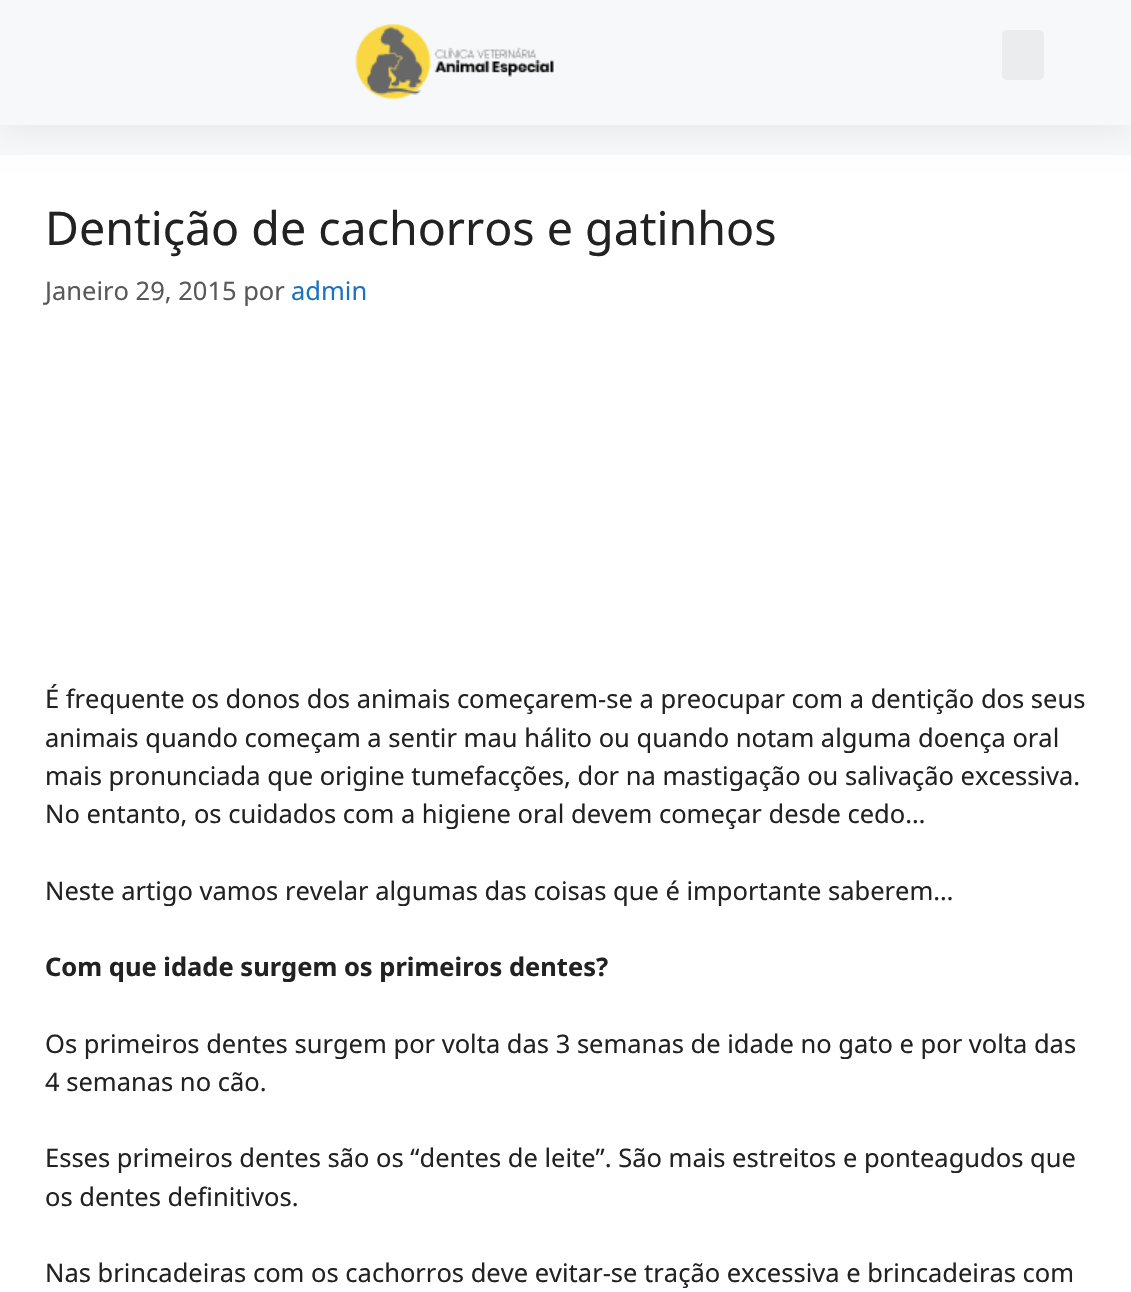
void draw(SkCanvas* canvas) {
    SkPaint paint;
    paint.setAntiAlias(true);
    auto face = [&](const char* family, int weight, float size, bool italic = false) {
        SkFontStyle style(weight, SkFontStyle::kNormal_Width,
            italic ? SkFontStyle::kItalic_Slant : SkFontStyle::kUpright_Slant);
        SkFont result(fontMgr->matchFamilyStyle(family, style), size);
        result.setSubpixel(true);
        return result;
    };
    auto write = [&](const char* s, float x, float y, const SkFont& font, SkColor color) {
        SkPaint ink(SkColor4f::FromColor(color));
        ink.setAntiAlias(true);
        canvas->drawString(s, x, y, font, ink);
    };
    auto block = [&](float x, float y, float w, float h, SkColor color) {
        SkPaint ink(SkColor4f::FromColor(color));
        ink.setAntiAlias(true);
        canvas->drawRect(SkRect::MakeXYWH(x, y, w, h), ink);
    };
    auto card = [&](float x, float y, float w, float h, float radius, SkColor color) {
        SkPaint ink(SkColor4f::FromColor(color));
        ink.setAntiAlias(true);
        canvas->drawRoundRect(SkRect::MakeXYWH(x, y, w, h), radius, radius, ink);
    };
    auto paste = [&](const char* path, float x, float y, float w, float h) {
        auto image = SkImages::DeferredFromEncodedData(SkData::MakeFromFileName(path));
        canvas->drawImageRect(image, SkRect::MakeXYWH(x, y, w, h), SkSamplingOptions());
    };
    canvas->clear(SkColorSetRGB(247, 248, 249));
    block(0, 155, 1131, 1137, SK_ColorWHITE);
    canvas->save();
    canvas->clipPath(SkPathBuilder(SkPathFillType::kEvenOdd).moveTo(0, 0).lineTo(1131, 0).lineTo(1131, 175).lineTo(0, 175).close().moveTo(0, 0).lineTo(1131, 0).lineTo(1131, 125).lineTo(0, 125).close().detach(), true);
    paint.setColor(SkColorSetARGB(18, 0, 0, 0));
    paint.setMaskFilter(SkMaskFilter::MakeBlur(kNormal_SkBlurStyle, 15));
    canvas->drawRect(SkRect::MakeXYWH(0, 5, 1131, 124), paint);
    paint.setMaskFilter(nullptr);
    canvas->restore();
    paste("pic1.png", 355, 24, 199, 75);
    card(1002, 30, 42, 50, 5, SkColorSetRGB(235, 236, 237));
    auto kFont1 = face("Noto Sans", 400, 46.5f);
    write("Dentição de cachorros e gatinhos", 45, 245, kFont1, SkColorSetRGB(34, 34, 34));
    auto kFont2 = face("Noto Sans", 400, 25.5f);
    write("Janeiro 29, 2015 por", 45, 300, kFont2, SkColorSetRGB(89, 89, 89));
    write("admin", 291, 300, kFont2, SkColorSetRGB(30, 115, 190));
    write("É frequente os donos dos animais começarem-se a preocupar com a dentição dos seus", 45, 708, kFont2, SkColorSetRGB(34, 34, 34));
    write("animais quando começam a sentir mau hálito ou quando notam alguma doença oral", 45, 747, kFont2, SkColorSetRGB(34, 34, 34));
    write("mais pronunciada que origine tumefacções, dor na mastigação ou salivação excessiva.", 45, 785, kFont2, SkColorSetRGB(34, 34, 34));
    write("No entanto, os cuidados com a higiene oral devem começar desde cedo…", 45, 823, kFont2, SkColorSetRGB(34, 34, 34));
    write("Neste artigo vamos revelar algumas das coisas que é importante saberem…", 45, 900, kFont2, SkColorSetRGB(34, 34, 34));
    auto kFont3 = face("Noto Sans", 700, 25.5f);
    write("Com que idade surgem os primeiros dentes?", 45, 976, kFont3, SkColorSetRGB(34, 34, 34));
    write("Os primeiros dentes surgem por volta das 3 semanas de idade no gato e por volta das", 45, 1053, kFont2, SkColorSetRGB(34, 34, 34));
    write("4 semanas no cão.", 45, 1091, kFont2, SkColorSetRGB(34, 34, 34));
    write("Esses primeiros dentes são os “dentes de leite”. São mais estreitos e ponteagudos que", 45, 1167, kFont2, SkColorSetRGB(34, 34, 34));
    write("os dentes definitivos.", 45, 1206, kFont2, SkColorSetRGB(34, 34, 34));
    write("Nas brincadeiras com os cachorros deve evitar-se tração excessiva e brincadeiras com", 45, 1282, kFont2, SkColorSetRGB(34, 34, 34));
}
